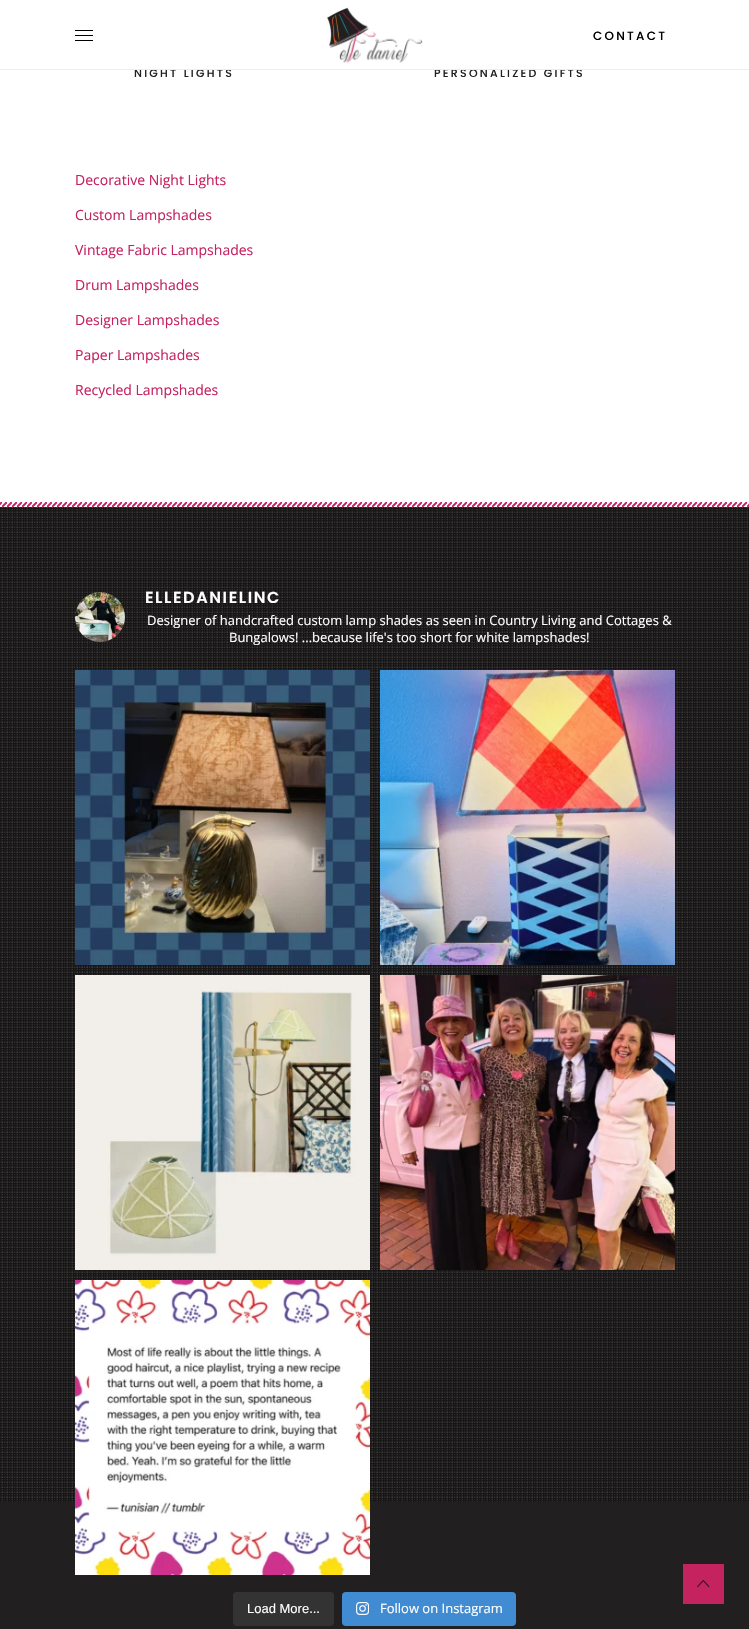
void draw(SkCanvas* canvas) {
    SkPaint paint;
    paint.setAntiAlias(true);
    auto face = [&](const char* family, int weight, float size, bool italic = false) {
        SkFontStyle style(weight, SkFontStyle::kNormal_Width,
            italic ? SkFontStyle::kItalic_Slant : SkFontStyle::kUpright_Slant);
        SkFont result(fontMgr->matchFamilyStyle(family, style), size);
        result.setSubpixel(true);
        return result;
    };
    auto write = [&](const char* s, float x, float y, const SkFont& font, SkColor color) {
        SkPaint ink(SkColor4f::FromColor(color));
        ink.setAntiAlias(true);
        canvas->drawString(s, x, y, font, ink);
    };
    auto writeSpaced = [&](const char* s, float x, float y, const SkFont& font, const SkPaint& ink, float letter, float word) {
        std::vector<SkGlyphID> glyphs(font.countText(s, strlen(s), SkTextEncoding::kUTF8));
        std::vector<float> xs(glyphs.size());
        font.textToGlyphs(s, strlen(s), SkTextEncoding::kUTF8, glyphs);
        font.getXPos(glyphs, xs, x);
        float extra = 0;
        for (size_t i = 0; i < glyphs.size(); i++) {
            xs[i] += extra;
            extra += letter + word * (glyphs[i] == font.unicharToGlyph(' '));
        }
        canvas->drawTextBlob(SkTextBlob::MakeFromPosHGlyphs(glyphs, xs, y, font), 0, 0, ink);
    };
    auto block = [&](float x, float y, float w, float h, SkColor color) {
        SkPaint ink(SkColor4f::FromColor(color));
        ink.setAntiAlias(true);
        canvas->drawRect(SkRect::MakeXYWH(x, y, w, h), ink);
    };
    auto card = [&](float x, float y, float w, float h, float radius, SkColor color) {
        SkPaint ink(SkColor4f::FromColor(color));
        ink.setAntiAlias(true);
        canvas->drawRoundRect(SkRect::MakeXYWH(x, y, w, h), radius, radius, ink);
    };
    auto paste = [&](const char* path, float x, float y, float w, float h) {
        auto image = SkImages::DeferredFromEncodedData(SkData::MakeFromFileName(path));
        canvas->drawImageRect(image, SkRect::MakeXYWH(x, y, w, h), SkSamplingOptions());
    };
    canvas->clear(SK_ColorWHITE);
    auto kFont1 = face("Poppins", 500, 11);
    paint.setColor(SkColorSetRGB(33, 31, 31));
    writeSpaced("NIGHT LIGHTS", 134, 77, kFont1, paint, 2.25f, 0);
    writeSpaced("PERSONALIZED GIFTS", 434, 77, kFont1, paint, 2.25f, 0);
    block(0, 69, 749, 1, SkColorSetRGB(237, 237, 237));
    block(75, 30, 18, 1, SK_ColorBLACK);
    block(75, 35, 18, 1, SK_ColorBLACK);
    block(75, 40, 18, 1, SK_ColorBLACK);
    paste("pic1.png", 327, 7, 96, 56);
    auto kFont2 = face("Poppins", 500, 12);
    paint.setColor(SK_ColorBLACK);
    writeSpaced("CONTACT", 593, 40, kFont2, paint, 2.25f, 0);
    auto kFont3 = face("Open Sans", 400, 14);
    write("Decorative Night Lights", 75, 185, kFont3, SkColorSetRGB(197, 34, 96));
    write("Custom Lampshades", 75, 220, kFont3, SkColorSetRGB(197, 34, 96));
    write("Vintage Fabric Lampshades", 75, 255, kFont3, SkColorSetRGB(197, 34, 96));
    write("Drum Lampshades", 75, 290, kFont3, SkColorSetRGB(197, 34, 96));
    write("Designer Lampshades", 75, 325, kFont3, SkColorSetRGB(197, 34, 96));
    write("Paper Lampshades", 75, 360, kFont3, SkColorSetRGB(197, 34, 96));
    write("Recycled Lampshades", 75, 395, kFont3, SkColorSetRGB(197, 34, 96));
    block(0, 1502, 749, 127, SkColorSetRGB(33, 31, 31));
    paste("pic2.png", 0, 502, 749, 1000);
    paste("pic3.png", 75, 592, 50, 50);
    auto kFont4 = face("Poppins", 600, 16);
    paint.setColor(SK_ColorWHITE);
    writeSpaced("ELLEDANIELINC", 145, 603, kFont4, paint, 1.6f, 0);
    auto kFont5 = face("Open Sans", 400, 13);
    write("Designer of handcrafted custom lamp shades as seen in Country Living and Cottages &", 147, 625, kFont5, SK_ColorWHITE);
    write("Bungalows! ...because life's too short for white lampshades!", 229, 642, kFont5, SK_ColorWHITE);
    paste("pic4.png", 75, 670, 295, 295);
    paste("pic5.png", 380, 670, 295, 295);
    paste("pic6.png", 75, 975, 295, 295);
    paste("pic7.png", 380, 975, 295, 295);
    paste("pic8.png", 75, 1280, 295, 295);
    card(233, 1592, 101, 34, 4, SkColorSetRGB(51, 51, 51));
    auto kFont6 = face("Liberation Sans", 400, 13);
    write("Load More...", 247, 1613, kFont6, SK_ColorWHITE);
    card(342, 1592, 174, 34, 4, SkColorSetRGB(64, 139, 209));
    paste("pic9.png", 356, 1602, 13, 13);
    write("Follow on Instagram", 380, 1613, kFont5, SK_ColorWHITE);
    block(683, 1564, 41, 40, SkColorSetRGB(197, 34, 96));
    paste("pic10.png", 697, 1579, 13, 9);
}
